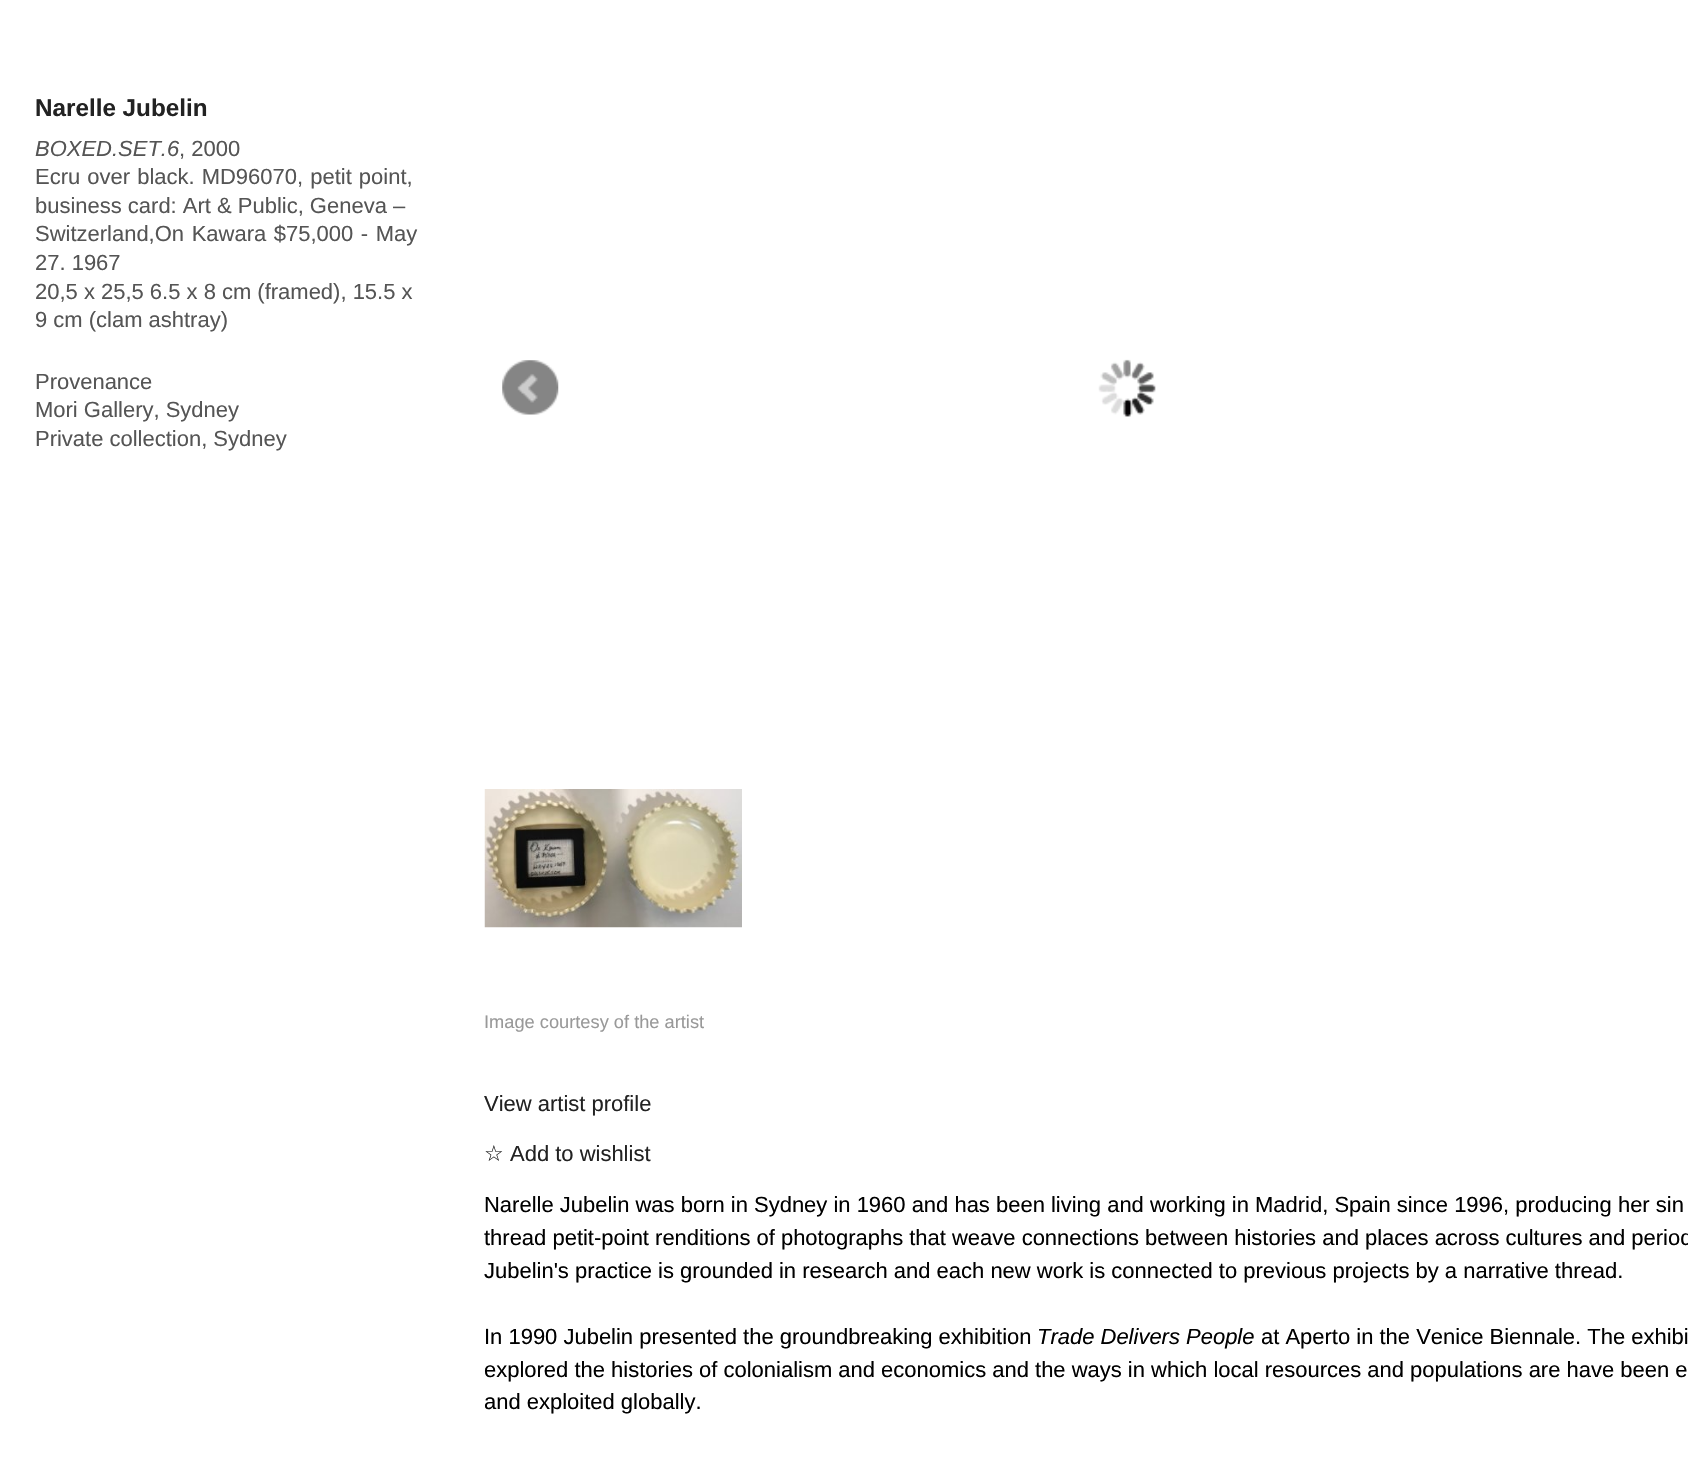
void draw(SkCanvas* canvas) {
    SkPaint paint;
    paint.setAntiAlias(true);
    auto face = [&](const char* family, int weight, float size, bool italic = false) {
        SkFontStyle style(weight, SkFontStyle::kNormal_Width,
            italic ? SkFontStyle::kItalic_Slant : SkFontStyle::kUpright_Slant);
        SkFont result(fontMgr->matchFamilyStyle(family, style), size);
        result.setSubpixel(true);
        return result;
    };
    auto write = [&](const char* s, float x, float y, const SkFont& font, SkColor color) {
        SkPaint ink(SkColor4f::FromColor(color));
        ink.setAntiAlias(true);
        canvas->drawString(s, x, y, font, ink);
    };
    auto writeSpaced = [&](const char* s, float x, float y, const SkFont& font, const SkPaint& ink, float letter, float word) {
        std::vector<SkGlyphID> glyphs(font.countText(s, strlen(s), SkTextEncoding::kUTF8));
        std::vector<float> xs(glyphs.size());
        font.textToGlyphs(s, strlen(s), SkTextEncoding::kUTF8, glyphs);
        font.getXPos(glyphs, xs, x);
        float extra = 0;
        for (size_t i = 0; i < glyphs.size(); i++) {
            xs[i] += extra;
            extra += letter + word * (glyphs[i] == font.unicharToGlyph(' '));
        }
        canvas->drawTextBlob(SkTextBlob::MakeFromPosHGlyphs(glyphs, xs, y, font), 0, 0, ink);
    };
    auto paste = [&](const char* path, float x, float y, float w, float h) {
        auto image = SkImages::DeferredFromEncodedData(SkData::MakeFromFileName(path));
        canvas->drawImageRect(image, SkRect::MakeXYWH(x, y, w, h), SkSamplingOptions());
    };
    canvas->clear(SK_ColorWHITE);
    auto kFont1 = face("Liberation Sans", 700, 24.25f);
    write("Narelle Jubelin", 35, 116, kFont1, SkColorSetRGB(34, 34, 34));
    auto kFont2 = face("Liberation Sans", 400, 21.98f, true);
    write("BOXED.SET.6", 35, 156, kFont2, SkColorSetRGB(85, 85, 85));
    auto kFont3 = face("Liberation Sans", 400, 21.98f);
    write(", 2000", 179, 156, kFont3, SkColorSetRGB(85, 85, 85));
    paint.setColor(SkColorSetRGB(85, 85, 85));
    writeSpaced("Ecru over black. MD96070, petit point,", 35, 184, kFont3, paint, 0, 1);
    write("business card: Art & Public, Geneva –", 35, 213, kFont3, SkColorSetRGB(85, 85, 85));
    writeSpaced("Switzerland,On Kawara $75,000 - May", 35, 241, kFont3, paint, 0, 1.5f);
    write("27. 1967", 35, 270, kFont3, SkColorSetRGB(85, 85, 85));
    write("20,5 x 25,5 6.5 x 8 cm (framed), 15.5 x", 35, 299, kFont3, SkColorSetRGB(85, 85, 85));
    write("9 cm (clam ashtray)", 35, 327, kFont3, SkColorSetRGB(85, 85, 85));
    write("Provenance", 35, 389, kFont3, SkColorSetRGB(85, 85, 85));
    write("Mori Gallery, Sydney", 35, 417, kFont3, SkColorSetRGB(85, 85, 85));
    write("Private collection, Sydney", 35, 446, kFont3, SkColorSetRGB(85, 85, 85));
    paste("pic1.png", 502, 360, 57, 55);
    paste("pic2.png", 1098, 359, 58, 58);
    paste("pic3.png", 484, 789, 258, 139);
    auto kFont4 = face("Liberation Sans", 400, 18.25f);
    write("Image courtesy of the artist", 484, 1028, kFont4, SkColorSetRGB(153, 153, 153));
    write("View artist profile", 484, 1111, kFont3, SkColorSetRGB(34, 34, 34));
    auto kFont5 = face("DejaVu Sans", 400, 21.98f);
    write("☆", 484, 1161, kFont5, SkColorSetRGB(34, 34, 34));
    write("Add to wishlist", 510, 1161, kFont3, SkColorSetRGB(34, 34, 34));
    write("Narelle Jubelin was born in Sydney in 1960 and has been living and working in Madrid, Spain since 1996, producing her sin", 484, 1212, kFont3, SK_ColorBLACK);
    write("thread petit-point renditions of photographs that weave connections between histories and places across cultures and period", 484, 1245, kFont3, SK_ColorBLACK);
    write("Jubelin's practice is grounded in research and each new work is connected to previous projects by a narrative thread.", 484, 1278, kFont3, SK_ColorBLACK);
    write("In 1990 Jubelin presented the groundbreaking exhibition", 484, 1344, kFont3, SK_ColorBLACK);
    write("Trade Delivers People", 1037, 1344, kFont2, SK_ColorBLACK);
    write("at Aperto in the Venice Biennale. The exhibi", 1261, 1344, kFont3, SK_ColorBLACK);
    write("explored the histories of colonialism and economics and the ways in which local resources and populations are have been e", 484, 1377, kFont3, SK_ColorBLACK);
    write("and exploited globally.", 484, 1409, kFont3, SK_ColorBLACK);
}
